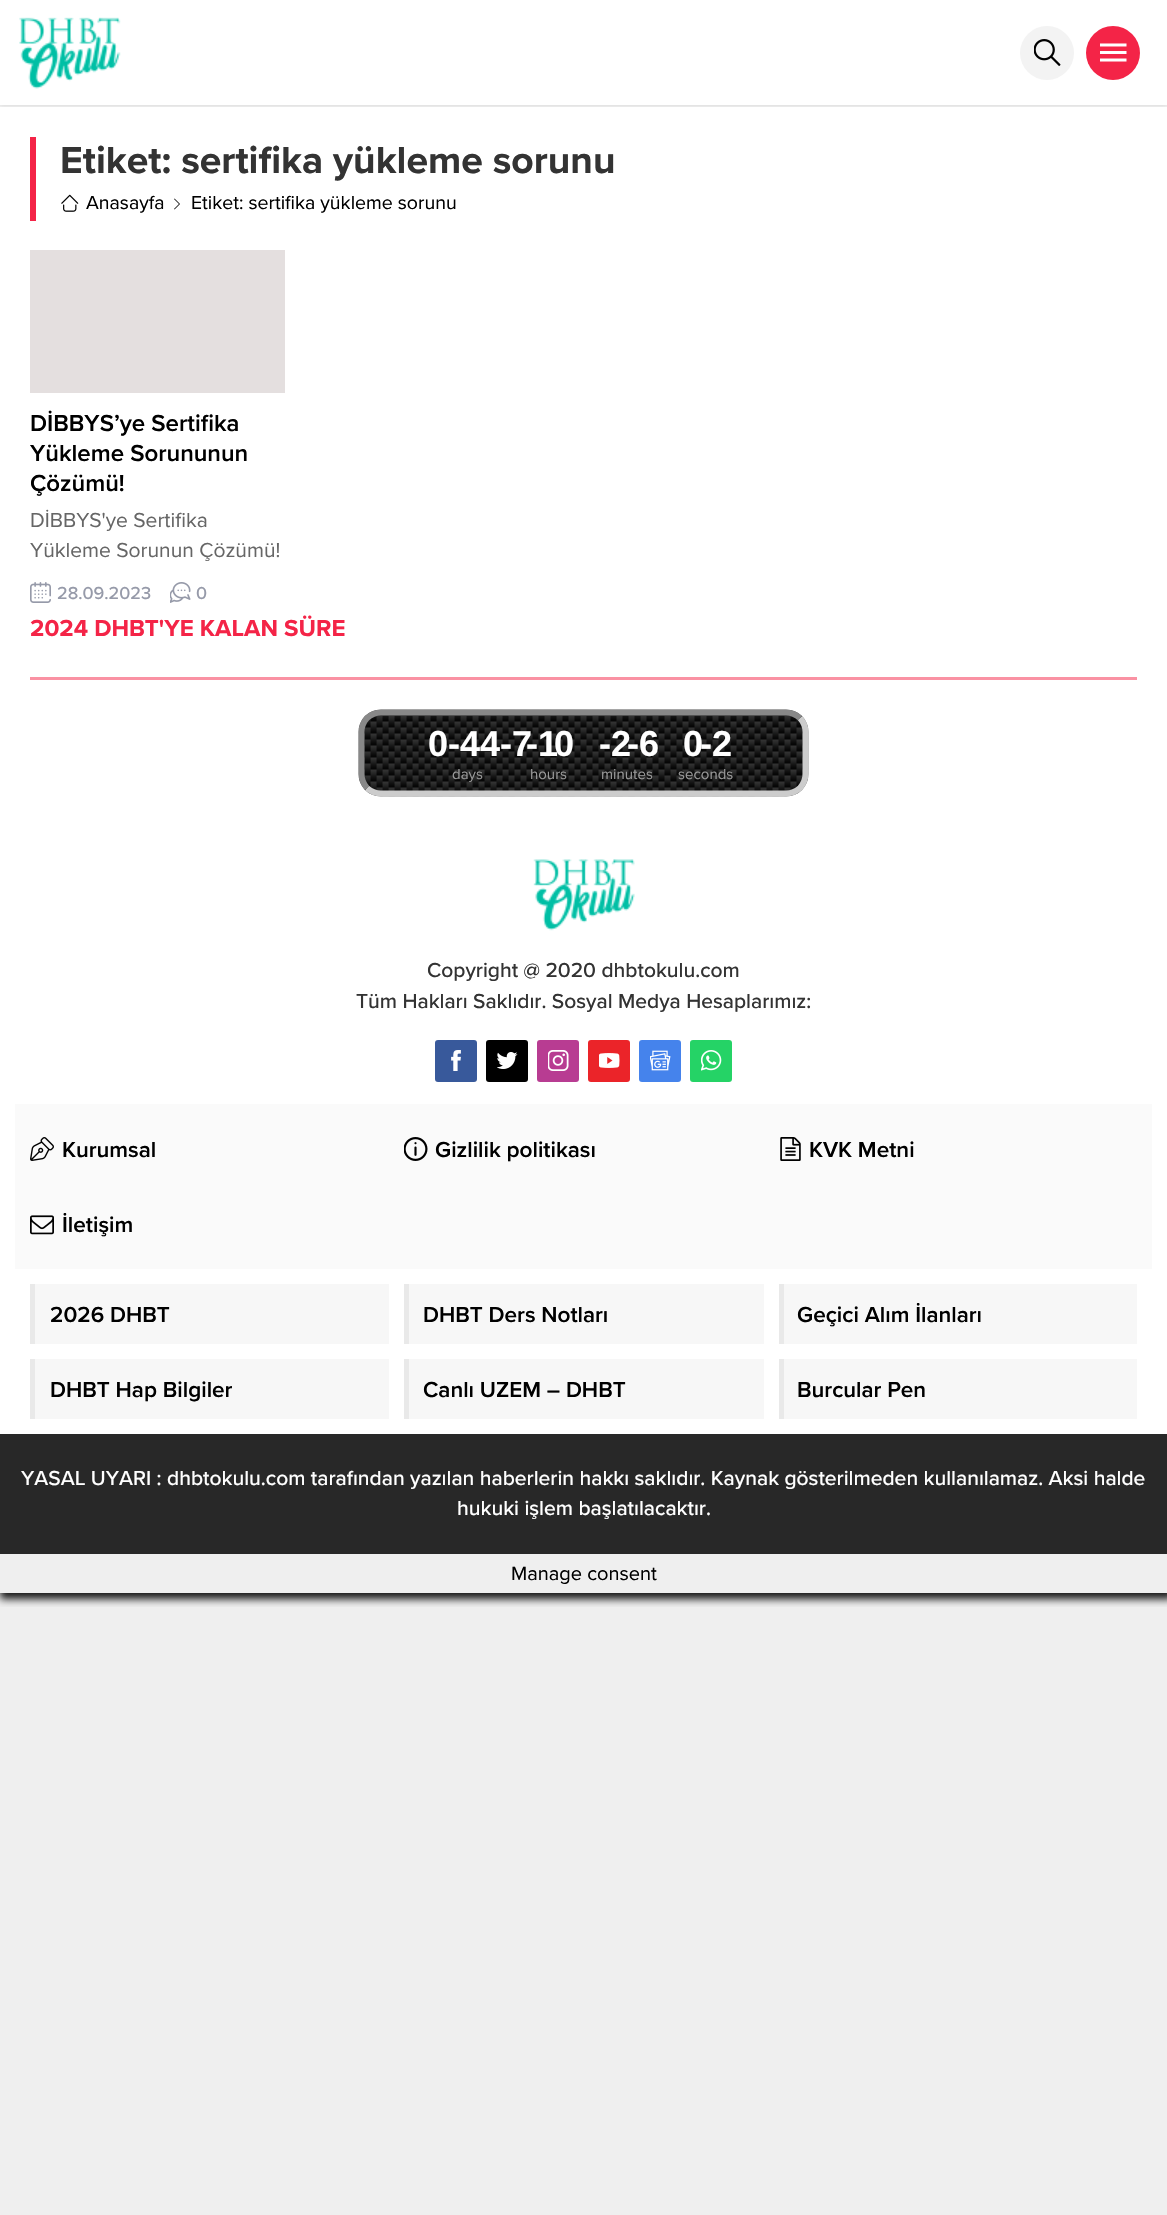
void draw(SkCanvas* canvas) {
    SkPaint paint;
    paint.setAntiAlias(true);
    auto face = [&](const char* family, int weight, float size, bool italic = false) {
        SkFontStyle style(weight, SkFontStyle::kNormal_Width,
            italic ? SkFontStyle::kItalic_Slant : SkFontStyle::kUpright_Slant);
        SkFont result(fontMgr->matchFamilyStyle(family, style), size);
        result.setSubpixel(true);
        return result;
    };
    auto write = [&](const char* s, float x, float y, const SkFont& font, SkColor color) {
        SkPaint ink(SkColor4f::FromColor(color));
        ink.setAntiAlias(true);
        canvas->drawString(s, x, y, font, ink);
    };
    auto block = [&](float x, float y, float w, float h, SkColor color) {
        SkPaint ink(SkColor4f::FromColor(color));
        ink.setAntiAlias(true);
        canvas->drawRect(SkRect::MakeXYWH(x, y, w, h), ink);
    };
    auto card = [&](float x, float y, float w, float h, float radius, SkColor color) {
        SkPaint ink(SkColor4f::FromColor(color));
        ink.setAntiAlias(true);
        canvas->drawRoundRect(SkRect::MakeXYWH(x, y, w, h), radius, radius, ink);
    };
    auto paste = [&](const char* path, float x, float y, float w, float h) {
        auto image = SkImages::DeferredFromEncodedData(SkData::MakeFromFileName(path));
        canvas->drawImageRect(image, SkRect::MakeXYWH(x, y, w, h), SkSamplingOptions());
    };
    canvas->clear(SkColorSetRGB(239, 239, 239));
    block(0, 0, 1167, 1434, SK_ColorWHITE);
    block(0, 105, 1167, 2, SkColorSetRGB(243, 243, 243));
    canvas->save();
    canvas->clipRect(SkRect::MakeXYWH(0, 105, 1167, 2));
    paint.setColor(SkColorSetARGB(38, 0, 0, 0));
    paint.setMaskFilter(SkMaskFilter::MakeBlur(kNormal_SkBlurStyle, 2));
    canvas->drawRect(SkRect::MakeXYWH(0, 0, 1167, 105), paint);
    paint.setMaskFilter(nullptr);
    canvas->restore();
    paste("pic1.png", 19, 17, 102, 72);
    paint.setColor(SkColorSetRGB(243, 243, 243));
    canvas->drawCircle(1047, 53, 27, paint);
    paste("pic2.png", 1034, 39, 27, 27);
    paint.setColor(SkColorSetRGB(244, 36, 71));
    canvas->drawCircle(1113, 53, 27, paint);
    paste("pic3.png", 1100, 43, 27, 19);
    block(30, 137, 6, 84, SkColorSetRGB(244, 36, 71));
    auto kFont1 = face("Proxima Nova", 700, 39);
    write("Etiket: sertifika yükleme sorunu", 60, 173, kFont1, SkColorSetRGB(51, 51, 51));
    paste("pic4.png", 61, 194, 18, 18);
    auto kFont2 = face("Proxima Nova", 400, 19.5f);
    write("Anasayfa", 86, 209, kFont2, SK_ColorBLACK);
    paste("pic5.png", 174, 198, 6, 12);
    write("Etiket: sertifika yükleme sorunu", 191, 209, kFont2, SK_ColorBLACK);
    block(30, 250, 255, 143, SkColorSetRGB(228, 223, 223));
    auto kFont3 = face("Proxima Nova", 600, 24);
    write("DİBBYS’ye Sertifika", 30, 431, kFont3, SK_ColorBLACK);
    write("Yükleme Sorununun", 30, 461, kFont3, SK_ColorBLACK);
    write("Çözümü!", 30, 491, kFont3, SK_ColorBLACK);
    auto kFont4 = face("Proxima Nova", 400, 21);
    write("DİBBYS'ye Sertifika", 30, 527, kFont4, SkColorSetRGB(102, 102, 102));
    write("Yükleme Sorunun Çözümü!", 30, 557, kFont4, SkColorSetRGB(102, 102, 102));
    paste("pic6.png", 30, 582, 21, 21);
    auto kFont5 = face("Proxima Nova", 500, 18);
    write("28.09.2023", 57, 599, kFont5, SkColorSetRGB(150, 154, 169));
    paste("pic7.png", 170, 582, 21, 21);
    write("0", 196, 599, kFont5, SkColorSetRGB(150, 154, 169));
    auto kFont6 = face("Proxima Nova", 700, 24);
    write("2024 DHBT'YE KALAN SÜRE", 30, 636, kFont6, SkColorSetRGB(244, 36, 71));
    block(30, 677, 1107, 3, SkColorSetRGB(250, 146, 163));
    paste("pic8.png", 358, 709, 451, 88);
    paint.setStyle(SkPaint::kStroke_Style);
    paint.setStrokeWidth(6);
    paint.setColor(SkColorSetRGB(204, 204, 204));
    canvas->drawPath(SkPathBuilder().moveTo(800, 718).cubicTo(803.5f, 722, 805.5f, 727, 805.5f, 732).lineTo(805.5f, 774).cubicTo(805.5f, 779, 803.5f, 784, 800, 788).cubicTo(796, 791.5f, 791, 793.5f, 786, 793.5f).lineTo(381, 793.5f).cubicTo(376, 793.5f, 371, 791.5f, 367, 788).detach(), paint);
    paint.setColor(SkColorSetRGB(136, 136, 136));
    canvas->drawPath(SkPathBuilder().moveTo(367, 788).cubicTo(363.5f, 784, 361.5f, 779, 361.5f, 774).lineTo(361.5f, 732).cubicTo(361.5f, 727, 363.5f, 722, 367, 718).cubicTo(371, 714.5f, 376, 712.5f, 381, 712.5f).lineTo(786, 712.5f).cubicTo(791, 712.5f, 796, 714.5f, 800, 718).detach(), paint);
    auto kFont7 = face("Liberation Sans", 700, 36);
    write("0-44-7", 428, 756, kFont7, SK_ColorWHITE);
    auto kFont8 = face("Proxima Nova", 400, 15);
    write("days", 452, 779, kFont8, SkColorSetRGB(153, 153, 153));
    write("-1", 526, 756, kFont7, SK_ColorWHITE);
    write("0", 554, 756, kFont7, SK_ColorWHITE);
    write("hours", 530, 779, kFont8, SkColorSetRGB(153, 153, 153));
    write("-2", 599, 756, kFont7, SK_ColorWHITE);
    write("-6", 627, 756, kFont7, SK_ColorWHITE);
    write("minutes", 601, 779, kFont8, SkColorSetRGB(153, 153, 153));
    write("0", 683, 756, kFont7, SK_ColorWHITE);
    write("-2", 700, 756, kFont7, SK_ColorWHITE);
    write("seconds", 678, 779, kFont8, SkColorSetRGB(153, 153, 153));
    paste("pic9.png", 533, 859, 102, 72);
    auto kFont9 = face("Proxima Nova", 500, 21);
    write("Copyright @ 2020 dhbtokulu.com", 427, 977, kFont9, SkColorSetRGB(51, 51, 51));
    write("Tüm Hakları Saklıdır. Sosyal Medya Hesaplarımız:", 356, 1008, kFont9, SkColorSetRGB(51, 51, 51));
    card(435, 1040, 42, 42, 3, SkColorSetRGB(56, 89, 155));
    paste("pic10.png", 451, 1050, 10, 21);
    card(486, 1040, 42, 42, 3, SK_ColorBLACK);
    paste("pic11.png", 497, 1052, 21, 17);
    card(537, 1040, 42, 42, 3, SkColorSetRGB(184, 60, 146));
    paste("pic12.png", 548, 1050, 21, 21);
    card(588, 1040, 42, 42, 3, SkColorSetRGB(235, 36, 41));
    paste("pic13.png", 599, 1053, 21, 15);
    card(639, 1040, 42, 42, 3, SkColorSetRGB(69, 131, 236));
    paste("pic14.png", 650, 1050, 21, 21);
    card(690, 1040, 42, 42, 3, SkColorSetRGB(37, 211, 102));
    paste("pic15.png", 701, 1050, 21, 21);
    block(15, 1104, 1137, 165, SkColorSetRGB(250, 250, 250));
    paste("pic16.png", 30, 1137, 24, 24);
    auto kFont10 = face("Proxima Nova", 600, 22.5f);
    write("Kurumsal", 62, 1157, kFont10, SK_ColorBLACK);
    paste("pic17.png", 404, 1137, 24, 24);
    write("Gizlilik politikası", 435, 1157, kFont10, SK_ColorBLACK);
    paste("pic18.png", 780, 1137, 21, 24);
    write("KVK Metni", 809, 1157, kFont10, SK_ColorBLACK);
    paste("pic19.png", 30, 1215, 24, 20);
    write("İletişim", 62, 1232, kFont10, SK_ColorBLACK);
    block(35, 1284, 354, 60, SkColorSetRGB(247, 247, 247));
    block(30, 1284, 5, 60, SkColorSetRGB(233, 233, 233));
    write("2026 DHBT", 50, 1322, kFont10, SK_ColorBLACK);
    block(409, 1284, 355, 60, SkColorSetRGB(247, 247, 247));
    block(404, 1284, 5, 60, SkColorSetRGB(233, 233, 233));
    write("DHBT Ders Notları", 423, 1322, kFont10, SK_ColorBLACK);
    block(784, 1284, 353, 60, SkColorSetRGB(247, 247, 247));
    block(779, 1284, 5, 60, SkColorSetRGB(233, 233, 233));
    write("Geçici Alım İlanları", 797, 1322, kFont10, SK_ColorBLACK);
    block(35, 1359, 354, 60, SkColorSetRGB(247, 247, 247));
    block(30, 1359, 5, 60, SkColorSetRGB(233, 233, 233));
    write("DHBT Hap Bilgiler", 50, 1397, kFont10, SK_ColorBLACK);
    block(409, 1359, 355, 60, SkColorSetRGB(247, 247, 247));
    block(404, 1359, 5, 60, SkColorSetRGB(233, 233, 233));
    write("Canlı UZEM – DHBT", 423, 1397, kFont10, SK_ColorBLACK);
    block(784, 1359, 353, 60, SkColorSetRGB(247, 247, 247));
    block(779, 1359, 5, 60, SkColorSetRGB(233, 233, 233));
    write("Burcular Pen", 797, 1397, kFont10, SK_ColorBLACK);
    canvas->save();
    canvas->clipRect(SkRect::MakeXYWH(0, 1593, 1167, 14));
    paint.setStyle(SkPaint::kFill_Style);
    paint.setColor(SkColorSetRGB(22, 22, 22));
    paint.setMaskFilter(SkMaskFilter::MakeBlur(kNormal_SkBlurStyle, 4));
    canvas->drawRect(SkRect::MakeXYWH(0, 1554, 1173, 45), paint);
    paint.setMaskFilter(nullptr);
    canvas->restore();
    block(0, 1434, 1167, 120, SkColorSetRGB(40, 40, 40));
    write("YASAL UYARI : dhbtokulu.com tarafından yazılan haberlerin hakkı saklıdır. Kaynak gösterilmeden kullanılamaz. Aksi halde", 21, 1485, kFont9, SK_ColorWHITE);
    write("hukuki işlem başlatılacaktır.", 457, 1515, kFont9, SK_ColorWHITE);
    auto kFont11 = face("Proxima Nova", 400, 20);
    write("Manage consent", 511, 1580, kFont11, SK_ColorBLACK);
}
